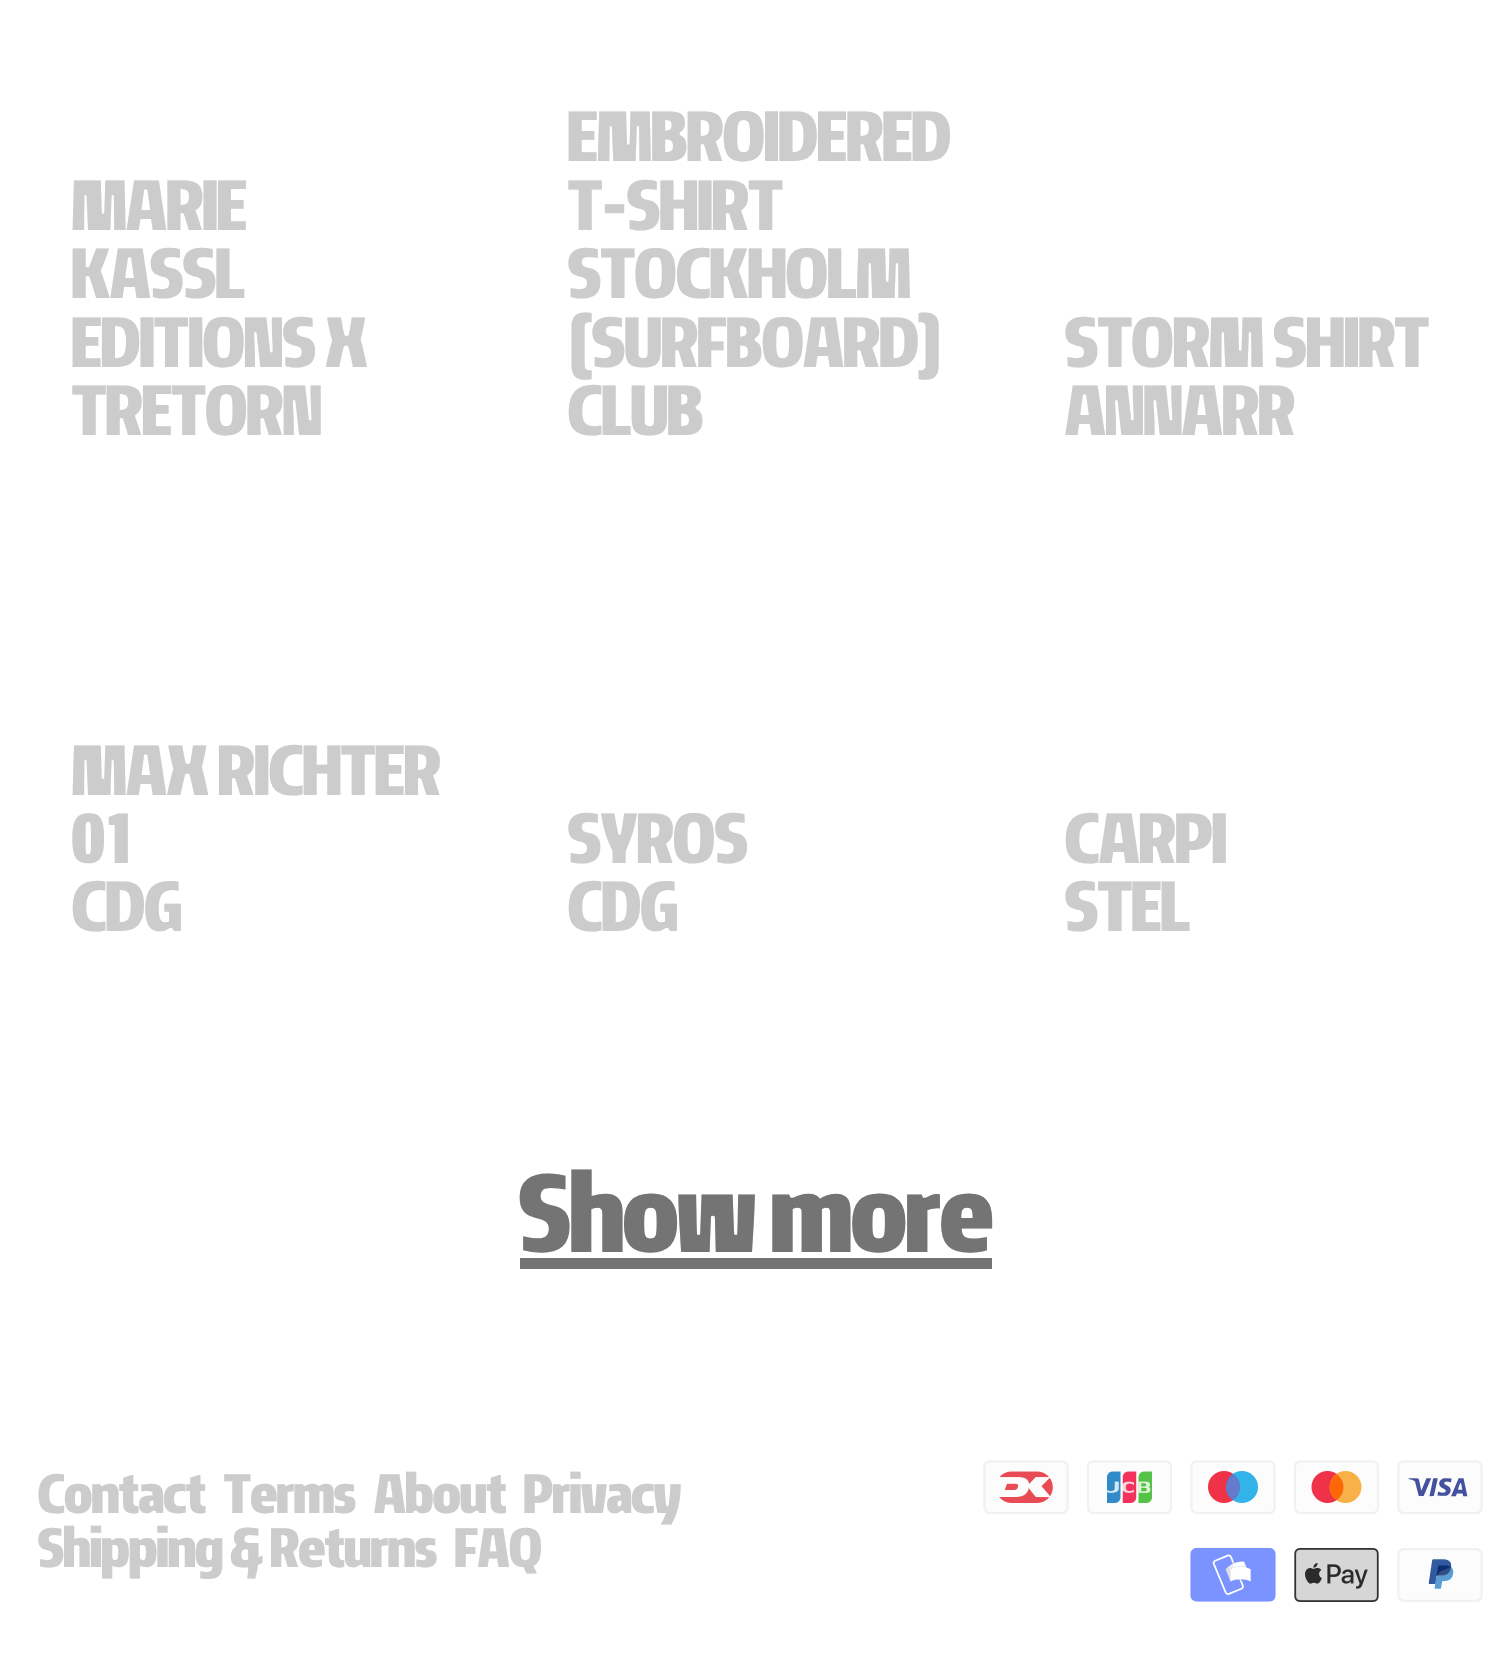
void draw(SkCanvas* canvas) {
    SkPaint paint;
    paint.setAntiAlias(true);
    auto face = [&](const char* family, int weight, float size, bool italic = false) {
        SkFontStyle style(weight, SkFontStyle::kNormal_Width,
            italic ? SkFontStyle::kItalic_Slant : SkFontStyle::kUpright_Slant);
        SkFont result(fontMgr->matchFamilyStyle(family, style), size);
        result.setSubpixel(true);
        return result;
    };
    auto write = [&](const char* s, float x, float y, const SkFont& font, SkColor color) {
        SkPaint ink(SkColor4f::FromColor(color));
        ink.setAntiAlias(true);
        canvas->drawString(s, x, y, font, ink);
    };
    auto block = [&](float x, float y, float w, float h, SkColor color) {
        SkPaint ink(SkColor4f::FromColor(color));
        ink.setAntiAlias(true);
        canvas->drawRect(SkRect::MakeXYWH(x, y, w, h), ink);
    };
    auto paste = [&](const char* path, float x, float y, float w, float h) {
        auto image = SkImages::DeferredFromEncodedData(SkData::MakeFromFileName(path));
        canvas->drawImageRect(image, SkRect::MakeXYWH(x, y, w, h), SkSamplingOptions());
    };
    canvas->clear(SK_ColorWHITE);
    auto kFont1 = face("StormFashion", 700, 72);
    write("MARIE", 72, 230, kFont1, SkColorSetRGB(204, 204, 204));
    write("KASSL", 72, 298, kFont1, SkColorSetRGB(204, 204, 204));
    write("EDITIONS X", 72, 367, kFont1, SkColorSetRGB(204, 204, 204));
    write("TRETORN", 72, 435, kFont1, SkColorSetRGB(204, 204, 204));
    write("EMBROIDERED", 568, 161, kFont1, SkColorSetRGB(204, 204, 204));
    write("T-SHIRT", 568, 230, kFont1, SkColorSetRGB(204, 204, 204));
    write("STOCKHOLM", 568, 298, kFont1, SkColorSetRGB(204, 204, 204));
    write("(SURFBOARD)", 568, 367, kFont1, SkColorSetRGB(204, 204, 204));
    write("CLUB", 568, 435, kFont1, SkColorSetRGB(204, 204, 204));
    write("STORM SHIRT", 1065, 367, kFont1, SkColorSetRGB(204, 204, 204));
    write("ANNARR", 1065, 435, kFont1, SkColorSetRGB(204, 204, 204));
    write("MAX RICHTER", 72, 795, kFont1, SkColorSetRGB(204, 204, 204));
    write("01", 72, 863, kFont1, SkColorSetRGB(204, 204, 204));
    write("CDG", 72, 931, kFont1, SkColorSetRGB(204, 204, 204));
    write("SYROS", 568, 863, kFont1, SkColorSetRGB(204, 204, 204));
    write("CDG", 568, 931, kFont1, SkColorSetRGB(204, 204, 204));
    write("CARPI", 1065, 863, kFont1, SkColorSetRGB(204, 204, 204));
    write("STEL", 1065, 931, kFont1, SkColorSetRGB(204, 204, 204));
    auto kFont2 = face("StormFashion", 700, 112.5f);
    write("Show more", 519, 1252, kFont2, SkColorSetRGB(116, 116, 116));
    block(520, 1258, 472, 11, SkColorSetRGB(116, 116, 116));
    auto kFont3 = face("StormFashion", 700, 56.25f);
    write("Contact", 38, 1513, kFont3, SkColorSetRGB(204, 204, 204));
    write("Terms", 224, 1513, kFont3, SkColorSetRGB(204, 204, 204));
    write("About", 374, 1513, kFont3, SkColorSetRGB(204, 204, 204));
    write("Privacy", 524, 1513, kFont3, SkColorSetRGB(204, 204, 204));
    write("Shipping & Returns", 38, 1567, kFont3, SkColorSetRGB(204, 204, 204));
    write("FAQ", 455, 1567, kFont3, SkColorSetRGB(204, 204, 204));
    paste("pic1.png", 983, 1460, 86, 54);
    paste("pic2.png", 1087, 1460, 85, 54);
    paste("pic3.png", 1190, 1460, 86, 54);
    paste("pic4.png", 1294, 1460, 85, 54);
    paste("pic5.png", 1397, 1460, 86, 54);
    paste("pic6.png", 1190, 1547, 86, 55);
    paste("pic7.png", 1294, 1548, 85, 54);
    paste("pic8.png", 1397, 1548, 86, 54);
}
